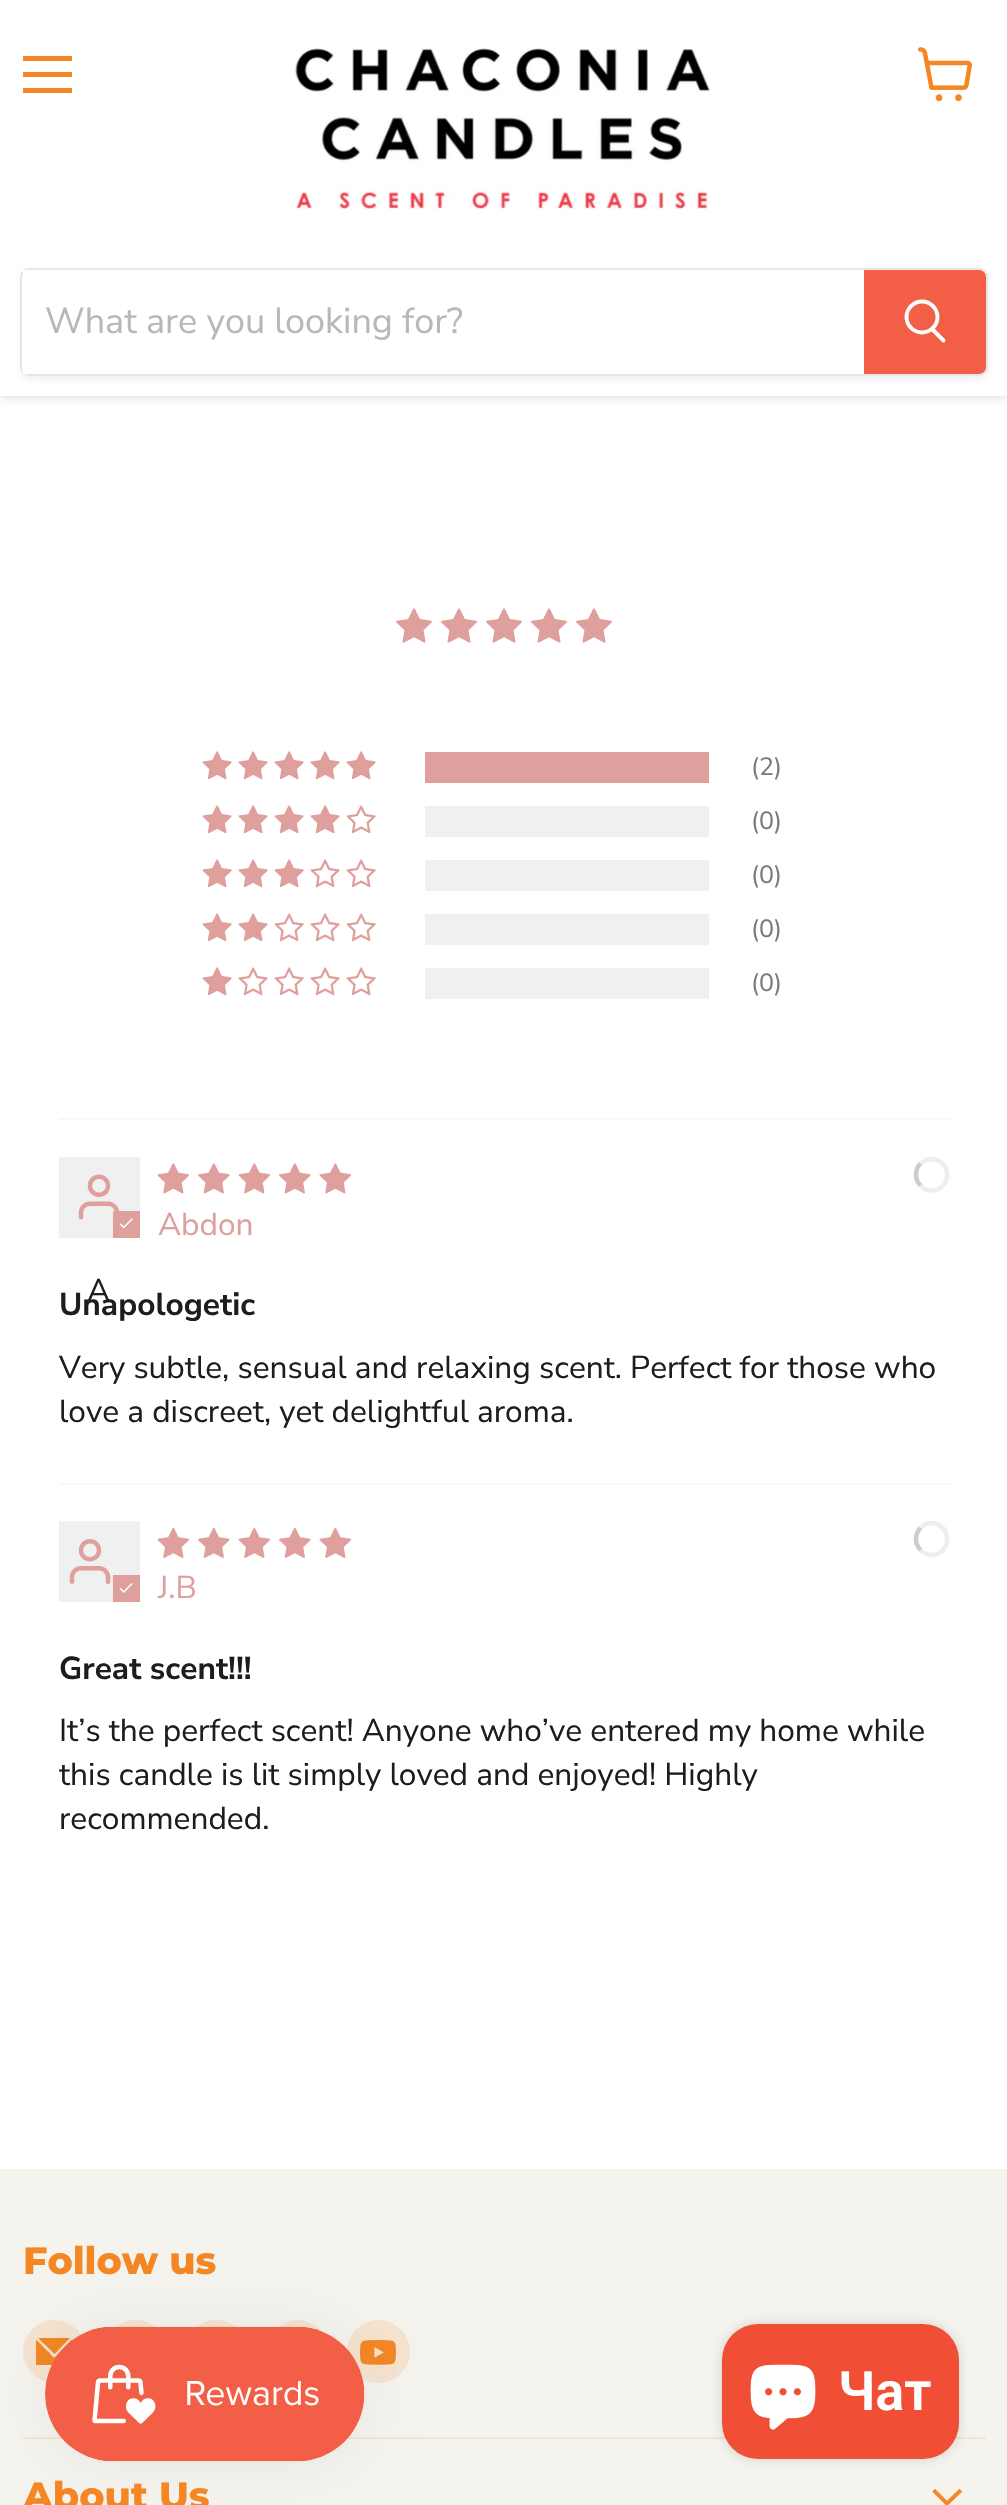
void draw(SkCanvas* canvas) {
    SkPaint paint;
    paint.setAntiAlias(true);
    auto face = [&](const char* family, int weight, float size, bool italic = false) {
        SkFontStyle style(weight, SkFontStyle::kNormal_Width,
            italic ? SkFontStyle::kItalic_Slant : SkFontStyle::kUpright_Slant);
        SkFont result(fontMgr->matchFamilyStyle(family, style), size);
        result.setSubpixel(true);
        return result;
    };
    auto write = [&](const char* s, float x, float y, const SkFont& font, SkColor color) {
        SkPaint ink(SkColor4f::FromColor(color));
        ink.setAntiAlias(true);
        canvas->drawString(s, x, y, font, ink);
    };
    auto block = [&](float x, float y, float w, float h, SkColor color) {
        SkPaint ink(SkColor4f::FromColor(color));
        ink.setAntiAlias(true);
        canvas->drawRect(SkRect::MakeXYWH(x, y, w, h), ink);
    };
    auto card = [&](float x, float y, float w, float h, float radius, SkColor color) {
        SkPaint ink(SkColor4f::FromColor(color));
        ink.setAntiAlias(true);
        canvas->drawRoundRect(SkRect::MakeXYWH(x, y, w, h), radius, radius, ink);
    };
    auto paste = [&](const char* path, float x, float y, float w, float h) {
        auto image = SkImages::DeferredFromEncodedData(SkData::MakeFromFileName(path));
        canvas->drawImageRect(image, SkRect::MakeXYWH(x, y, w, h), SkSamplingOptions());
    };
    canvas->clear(SK_ColorWHITE);
    paint.setColor(SkColorSetARGB(64, 128, 128, 128));
    paint.setMaskFilter(SkMaskFilter::MakeBlur(kNormal_SkBlurStyle, 4.5f));
    canvas->drawRect(SkRect::MakeXYWH(0, 2, 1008, 396), paint);
    paint.setMaskFilter(nullptr);
    block(0, 0, 1007, 396, SK_ColorWHITE);
    block(23, 56, 49, 5, SkColorSetRGB(244, 135, 36));
    block(23, 72, 49, 5, SkColorSetRGB(244, 135, 36));
    block(23, 88, 49, 5, SkColorSetRGB(244, 135, 36));
    paste("pic1.png", 918, 47, 54, 54);
    paste("pic2.png", 295, 48, 415, 162);
    canvas->save();
    canvas->clipPath(SkPathBuilder(SkPathFillType::kEvenOdd).moveTo(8, 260).lineTo(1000, 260).lineTo(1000, 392).lineTo(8, 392).close().moveTo(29, 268).lineTo(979, 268).cubicTo(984, 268, 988, 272, 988, 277).lineTo(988, 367).cubicTo(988, 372, 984, 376, 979, 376).lineTo(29, 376).cubicTo(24, 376, 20, 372, 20, 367).lineTo(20, 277).cubicTo(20, 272, 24, 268, 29, 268).close().detach(), true);
    paint.setColor(SkColorSetARGB(28, 128, 128, 128));
    paint.setMaskFilter(SkMaskFilter::MakeBlur(kNormal_SkBlurStyle, 3.5f));
    canvas->drawRoundRect(SkRect::MakeXYWH(20, 272, 968, 108), 9, 9, paint);
    paint.setMaskFilter(nullptr);
    canvas->restore();
    paint.setStyle(SkPaint::kStroke_Style);
    paint.setStrokeWidth(2);
    paint.setColor(SkColorSetARGB(51, 128, 128, 128));
    canvas->drawRoundRect(SkRect::MakeXYWH(21, 269, 966, 106), 8, 8, paint);
    block(23, 270, 5, 104, SK_ColorWHITE);
    auto kFont1 = face("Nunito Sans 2", 400, 36);
    write("What are you looking for?", 45, 333, kFont1, SkColorSetRGB(184, 184, 184));
    paint.setStyle(SkPaint::kFill_Style);
    paint.setColor(SkColorSetRGB(243, 94, 71));
    canvas->drawPath(SkPathBuilder().moveTo(865, 271).lineTo(979, 271).cubicTo(982.5f, 271, 985, 273.5f, 985, 277).lineTo(985, 367).cubicTo(985, 370.5f, 982.5f, 373, 979, 373).lineTo(865, 373).close().detach(), paint);
    paint.setStyle(SkPaint::kStroke_Style);
    canvas->drawPath(SkPathBuilder().moveTo(865, 271).lineTo(979, 271).cubicTo(982.5f, 271, 985, 273.5f, 985, 277).lineTo(985, 367).cubicTo(985, 370.5f, 982.5f, 373, 979, 373).lineTo(865, 373).close().detach(), paint);
    paint.setStrokeWidth(3.9f);
    paint.setStrokeCap(SkPaint::kRound_Cap);
    paint.setColor(SK_ColorWHITE);
    canvas->drawPath(SkPathBuilder().moveTo(943.5f, 340.5f).lineTo(932.5f, 329.5f).detach(), paint);
    paint.setStrokeCap(SkPaint::kButt_Cap);
    canvas->drawCircle(922, 317, 15.5f, paint);
    paste("pic3.png", 396, 608, 36, 35);
    paste("pic3.png", 441, 608, 36, 35);
    paste("pic3.png", 486, 608, 36, 35);
    paste("pic3.png", 531, 608, 36, 35);
    paste("pic3.png", 576, 608, 36, 35);
    paste("pic4.png", 202, 751, 30, 29);
    paste("pic4.png", 238, 751, 30, 29);
    paste("pic4.png", 274, 751, 30, 29);
    paste("pic4.png", 310, 751, 30, 29);
    paste("pic4.png", 346, 751, 30, 29);
    block(425, 752, 284, 31, SkColorSetRGB(223, 160, 157));
    auto kFont2 = face("Nunito Sans", 400, 25);
    write("(2)", 751, 775, kFont2, SkColorSetRGB(123, 123, 123));
    paste("pic4.png", 202, 805, 30, 29);
    paste("pic4.png", 238, 805, 30, 29);
    paste("pic4.png", 274, 805, 30, 29);
    paste("pic4.png", 310, 805, 30, 29);
    paste("pic5.png", 346, 805, 30, 29);
    block(425, 806, 284, 31, SkColorSetRGB(240, 240, 240));
    write("(0)", 751, 829, kFont2, SkColorSetRGB(123, 123, 123));
    paste("pic4.png", 202, 859, 30, 29);
    paste("pic4.png", 238, 859, 30, 29);
    paste("pic4.png", 274, 859, 30, 29);
    paste("pic5.png", 310, 859, 30, 29);
    paste("pic5.png", 346, 859, 30, 29);
    block(425, 860, 284, 31, SkColorSetRGB(240, 240, 240));
    write("(0)", 751, 883, kFont2, SkColorSetRGB(123, 123, 123));
    paste("pic4.png", 202, 913, 30, 29);
    paste("pic4.png", 238, 913, 30, 29);
    paste("pic5.png", 274, 913, 30, 29);
    paste("pic5.png", 310, 913, 30, 29);
    paste("pic5.png", 346, 913, 30, 29);
    block(425, 914, 284, 31, SkColorSetRGB(240, 240, 240));
    write("(0)", 751, 937, kFont2, SkColorSetRGB(123, 123, 123));
    paste("pic4.png", 202, 967, 30, 29);
    paste("pic5.png", 238, 967, 30, 29);
    paste("pic5.png", 274, 967, 30, 29);
    paste("pic5.png", 310, 967, 30, 29);
    paste("pic5.png", 346, 967, 30, 29);
    block(425, 968, 284, 31, SkColorSetRGB(240, 240, 240));
    write("(0)", 751, 991, kFont2, SkColorSetRGB(123, 123, 123));
    block(59, 1118, 891, 2, SkColorSetRGB(252, 246, 245));
    paste("pic6.png", 157, 1163, 32, 31);
    paste("pic7.png", 198, 1163, 32, 31);
    paste("pic6.png", 238, 1163, 32, 31);
    paste("pic7.png", 279, 1163, 32, 31);
    paste("pic6.png", 319, 1163, 32, 31);
    paint.setStrokeWidth(4.5f);
    paint.setColor(SkColorSetRGB(238, 238, 238));
    canvas->drawPath(SkPathBuilder().moveTo(920.5f, 1163.5f).cubicTo(923.5f, 1160.5f, 927.5f, 1159, 931.5f, 1159).cubicTo(950.5f, 1159, 953, 1186.5f, 934.5f, 1190).cubicTo(929.5f, 1191, 924, 1189.5f, 920.5f, 1185.5f).detach(), paint);
    paint.setColor(SkColorSetRGB(204, 204, 204));
    canvas->drawPath(SkPathBuilder().moveTo(920.5f, 1185.5f).cubicTo(914.5f, 1179.5f, 914.5f, 1169.5f, 920.5f, 1163.5f).detach(), paint);
    auto kFont3 = face("Nunito Sans 2", 400, 31.65f);
    write("Abdon", 158, 1235, kFont3, SkColorSetRGB(223, 160, 157));
    block(59, 1157, 81, 81, SkColorSetRGB(240, 240, 240));
    paste("pic8.png", 78, 1174, 42, 46);
    block(113, 1211, 27, 27, SkColorSetRGB(223, 160, 157));
    paste("pic9.png", 119, 1218, 14, 11);
    write("A", 87, 1301, kFont3, SkColorSetRGB(29, 29, 29));
    auto kFont4 = face("Nunito Sans", 700, 31.65f);
    write("Unapologetic", 59, 1315, kFont4, SkColorSetRGB(29, 29, 29));
    write("Very subtle, sensual and relaxing scent. Perfect for those who", 59, 1378, kFont3, SkColorSetRGB(29, 29, 29));
    write("love a discreet, yet delightful aroma.", 59, 1422, kFont3, SkColorSetRGB(29, 29, 29));
    block(59, 1483, 891, 2, SkColorSetRGB(252, 246, 245));
    block(59, 1521, 81, 81, SkColorSetRGB(240, 240, 240));
    paste("pic10.png", 69, 1539, 42, 45);
    block(113, 1575, 27, 27, SkColorSetRGB(223, 160, 157));
    paste("pic11.png", 119, 1583, 14, 10);
    paste("pic12.png", 157, 1527, 33, 31);
    paste("pic13.png", 198, 1527, 32, 31);
    paste("pic12.png", 238, 1527, 33, 31);
    paste("pic13.png", 279, 1527, 32, 31);
    paste("pic12.png", 319, 1527, 33, 31);
    paint.setColor(SkColorSetRGB(238, 238, 238));
    canvas->drawPath(SkPathBuilder().moveTo(920.5f, 1528).cubicTo(924, 1524, 929.5f, 1522.5f, 934.5f, 1523.5f).cubicTo(953, 1527, 950.5f, 1555, 931.5f, 1555).cubicTo(927.5f, 1555, 923.5f, 1553, 920.5f, 1550).detach(), paint);
    paint.setColor(SkColorSetRGB(204, 204, 204));
    canvas->drawPath(SkPathBuilder().moveTo(920.5f, 1550).cubicTo(914.5f, 1544, 914.5f, 1534, 920.5f, 1528).detach(), paint);
    write("J.B", 158, 1598, kFont3, SkColorSetRGB(223, 160, 157));
    write("Great scent!!!", 59, 1679, kFont4, SkColorSetRGB(29, 29, 29));
    write("It’s the perfect scent! Anyone who’ve entered my home while", 59, 1741, kFont3, SkColorSetRGB(29, 29, 29));
    write("this candle is lit simply loved and enjoyed! Highly", 59, 1785, kFont3, SkColorSetRGB(29, 29, 29));
    write("recommended.", 59, 1829, kFont3, SkColorSetRGB(29, 29, 29));
    block(0, 2169, 1007, 336, SkColorSetRGB(245, 243, 237));
    block(23, 2437, 963, 2, SkColorSetRGB(245, 227, 207));
    paint.setStyle(SkPaint::kFill_Style);
    paint.setColor(SkColorSetRGB(245, 227, 207));
    canvas->drawCircle(54.5f, 2351.5f, 31.5f, paint);
    paint.setColor(SkColorSetRGB(244, 135, 36));
    canvas->drawPath(SkPathBuilder().moveTo(55, 2357).cubicTo(53.5f, 2358.5f, 50.5f, 2354, 50.5f, 2354).lineTo(36, 2339.5f).lineTo(36, 2365).lineTo(72, 2365).lineTo(72, 2339.5f).close().detach(), paint);
    canvas->drawPath(SkPathBuilder().moveTo(70, 2338).lineTo(38, 2338).lineTo(54.5f, 2354).close().detach(), paint);
    paint.setColor(SkColorSetRGB(245, 227, 207));
    canvas->drawCircle(135.5f, 2351.5f, 31.5f, paint);
    canvas->drawCircle(216.5f, 2351.5f, 31.5f, paint);
    canvas->drawCircle(297.5f, 2351.5f, 31.5f, paint);
    canvas->drawCircle(378.5f, 2351.5f, 31.5f, paint);
    paste("pic15.png", 360, 2340, 36, 25);
    paint.setColor(SkColorSetARGB(13, 0, 0, 0));
    paint.setMaskFilter(SkMaskFilter::MakeBlur(kNormal_SkBlurStyle, 28));
    canvas->drawRoundRect(SkRect::MakeXYWH(45, 2327, 320, 135), 67.5f, 67.5f, paint);
    paint.setMaskFilter(nullptr);
    paste("pic14.png", 45, 2326, 320, 136);
    auto kFont5 = face("Montserrat", 800, 38);
    write("Follow us", 23, 2274, kFont5, SkColorSetRGB(244, 135, 36));
    write("About Us", 23, 2509, kFont5, SkColorSetRGB(244, 135, 36));
    paint.setStyle(SkPaint::kStroke_Style);
    paint.setStrokeWidth(3.9f);
    paint.setStrokeCap(SkPaint::kSquare_Cap);
    paint.setColor(SkColorSetRGB(244, 135, 36));
    canvas->drawPath(SkPathBuilder().moveTo(947, 2503.5f).lineTo(959.5f, 2491.5f).moveTo(947, 2503.5f).lineTo(935, 2491.5f).detach(), paint);
    paint.setStyle(SkPaint::kFill_Style);
    paint.setColor(SkColorSetARGB(38, 0, 0, 0));
    paint.setMaskFilter(SkMaskFilter::MakeBlur(kNormal_SkBlurStyle, 5.5f));
    canvas->drawRoundRect(SkRect::MakeXYWH(722, 2324, 237, 135), 36, 36, paint);
    paint.setMaskFilter(nullptr);
    card(722, 2324, 237, 135, 36, SkColorSetRGB(240, 79, 54));
    paste("pic16.png", 750, 2364, 66, 66);
    auto kFont6 = face("Roboto", 600, 54);
    write("Чат", 838, 2410, kFont6, SK_ColorWHITE);
}
